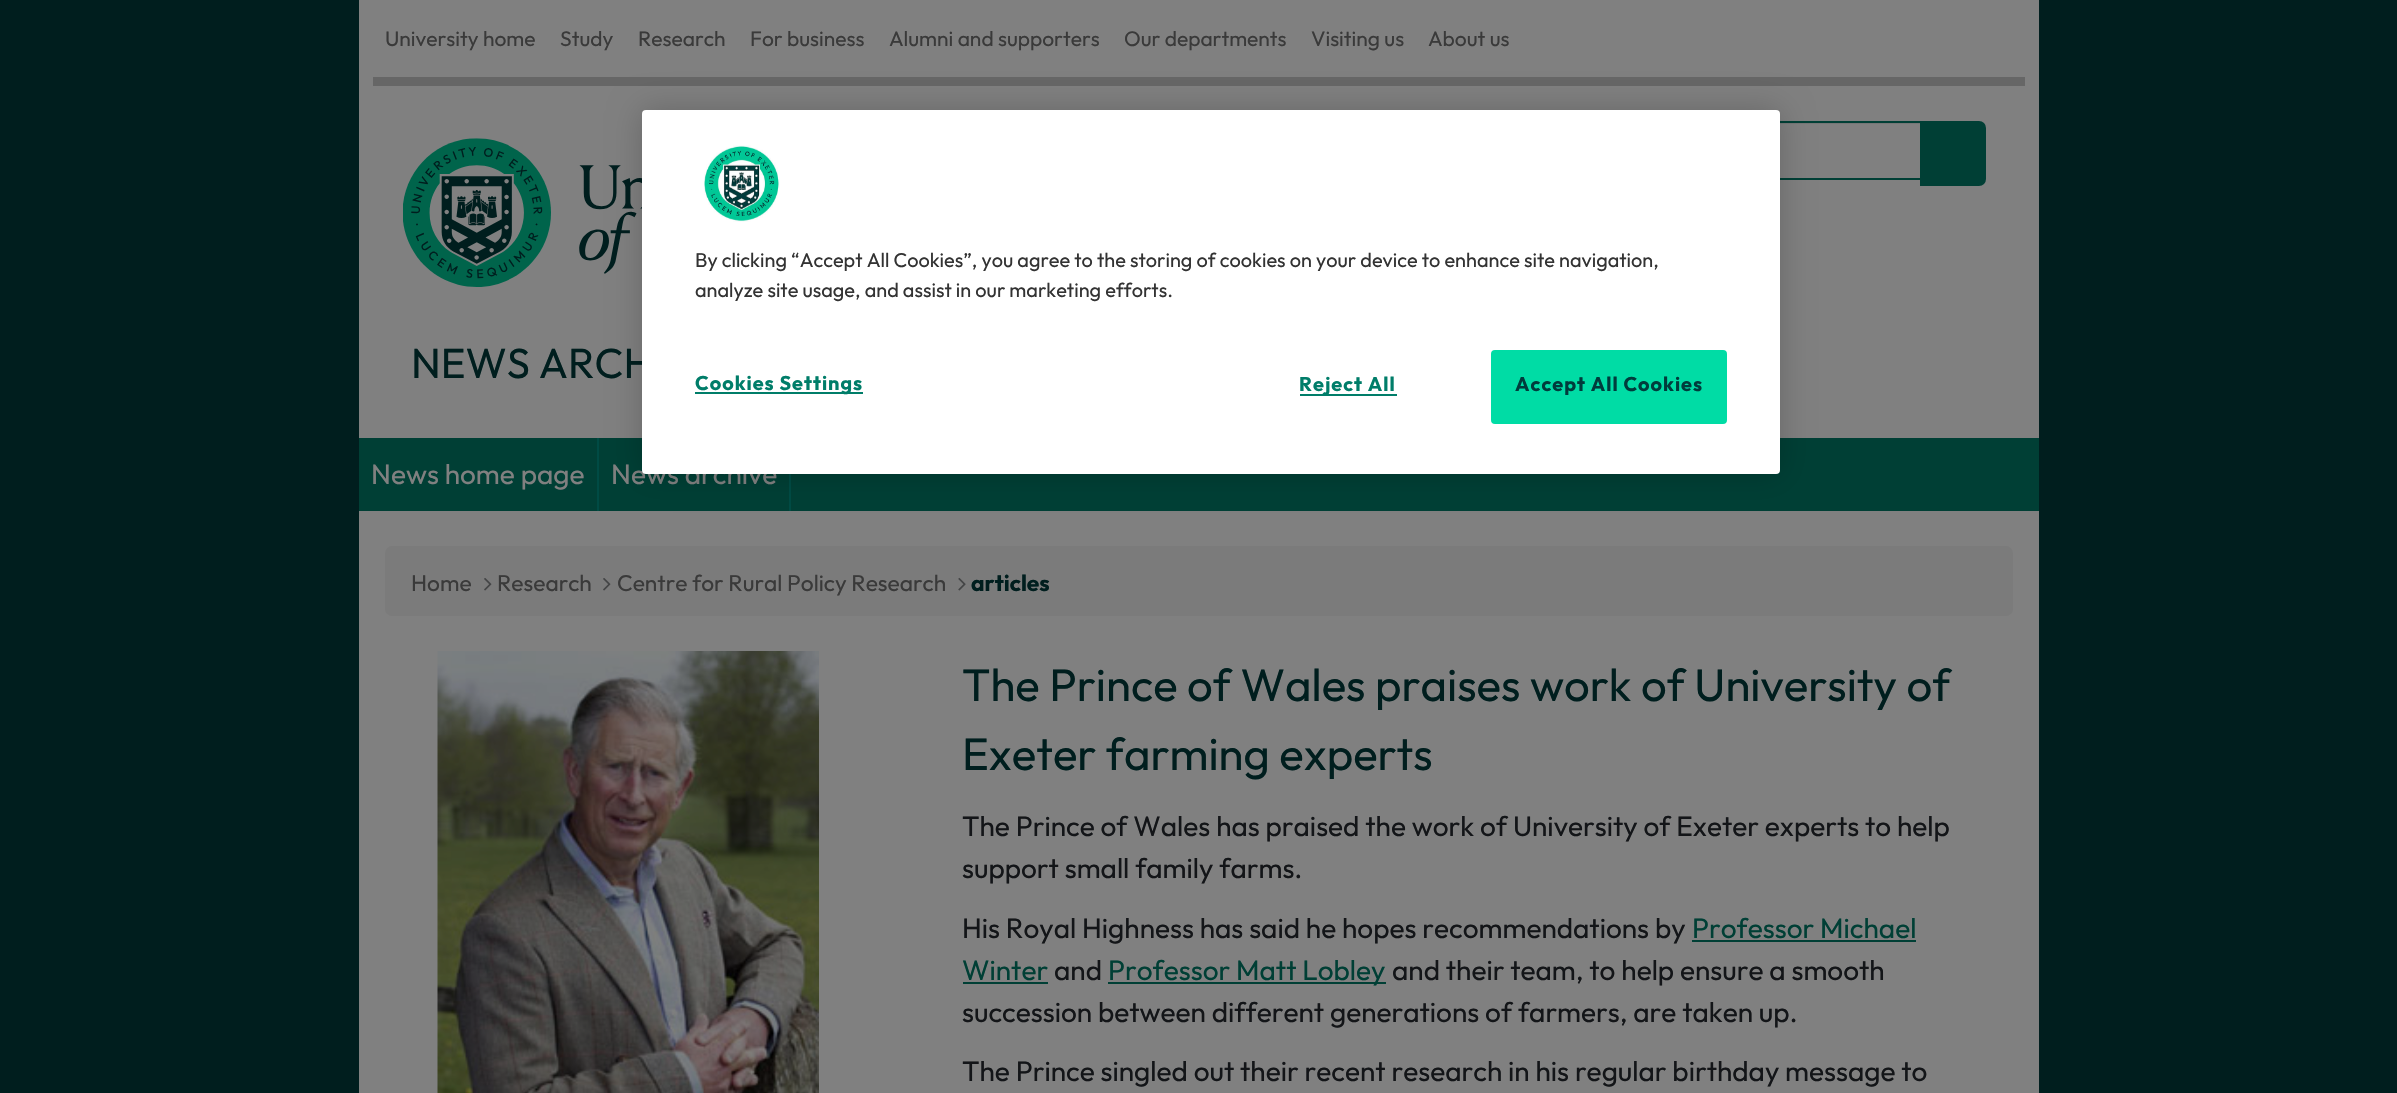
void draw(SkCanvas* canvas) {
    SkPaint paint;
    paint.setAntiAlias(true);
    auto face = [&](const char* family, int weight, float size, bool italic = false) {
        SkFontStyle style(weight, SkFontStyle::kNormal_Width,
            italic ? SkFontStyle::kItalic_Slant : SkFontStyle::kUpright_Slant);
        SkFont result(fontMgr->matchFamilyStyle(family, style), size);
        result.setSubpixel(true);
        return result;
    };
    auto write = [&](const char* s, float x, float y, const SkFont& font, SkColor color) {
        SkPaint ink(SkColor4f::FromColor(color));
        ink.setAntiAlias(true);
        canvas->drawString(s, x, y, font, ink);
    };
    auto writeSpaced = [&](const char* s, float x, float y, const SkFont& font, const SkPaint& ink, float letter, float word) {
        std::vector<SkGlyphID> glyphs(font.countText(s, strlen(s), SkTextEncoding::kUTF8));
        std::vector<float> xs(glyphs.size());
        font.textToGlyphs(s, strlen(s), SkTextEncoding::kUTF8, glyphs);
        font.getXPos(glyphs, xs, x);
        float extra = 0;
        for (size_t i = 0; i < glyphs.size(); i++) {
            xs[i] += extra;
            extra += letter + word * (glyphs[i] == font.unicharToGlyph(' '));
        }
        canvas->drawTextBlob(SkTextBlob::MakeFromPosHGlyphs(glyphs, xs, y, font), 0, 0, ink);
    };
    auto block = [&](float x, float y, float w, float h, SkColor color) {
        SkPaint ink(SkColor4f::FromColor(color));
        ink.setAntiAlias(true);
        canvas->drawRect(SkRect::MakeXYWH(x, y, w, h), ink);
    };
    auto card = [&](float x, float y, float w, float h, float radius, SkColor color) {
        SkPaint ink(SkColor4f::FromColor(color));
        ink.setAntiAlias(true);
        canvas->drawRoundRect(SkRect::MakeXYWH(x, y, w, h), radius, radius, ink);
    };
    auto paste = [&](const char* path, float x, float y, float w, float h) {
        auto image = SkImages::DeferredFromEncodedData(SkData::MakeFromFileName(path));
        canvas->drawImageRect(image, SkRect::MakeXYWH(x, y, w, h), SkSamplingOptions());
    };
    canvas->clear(SkColorSetRGB(0, 30, 30));
    block(359, 0, 1680, 438, SkColorSetRGB(128, 128, 128));
    block(373, 77, 1652, 9, SkColorSetRGB(102, 102, 102));
    auto kFont1 = face("Outfit", 400, 21);
    write("University home", 385, 46, kFont1, SkColorSetRGB(58, 58, 58));
    write("Study", 560, 46, kFont1, SkColorSetRGB(58, 58, 58));
    write("Research", 638, 46, kFont1, SkColorSetRGB(58, 58, 58));
    write("For business", 750, 46, kFont1, SkColorSetRGB(58, 58, 58));
    write("Alumni and supporters", 889, 46, kFont1, SkColorSetRGB(58, 58, 58));
    write("Our departments", 1124, 46, kFont1, SkColorSetRGB(58, 58, 58));
    write("Visiting us", 1311, 46, kFont1, SkColorSetRGB(58, 58, 58));
    write("About us", 1428, 46, kFont1, SkColorSetRGB(58, 58, 58));
    paint.setColor(SkColorSetRGB(118, 118, 118));
    canvas->drawPath(SkPathBuilder().moveTo(1528, 124).lineTo(1920, 124).lineTo(1920, 123).lineTo(1528, 123).cubicTo(1526, 123, 1524, 125, 1523, 127).cubicTo(1524, 125, 1526, 124, 1528, 124).close().detach(), paint);
    paint.setStyle(SkPaint::kStroke_Style);
    paint.setStrokeWidth(2);
    paint.setColor(SkColorSetRGB(0, 63, 53));
    canvas->drawRect(SkRect::MakeXYWH(1522, 122, 399, 57), paint);
    paint.setStyle(SkPaint::kFill_Style);
    canvas->drawPath(SkPathBuilder().moveTo(1921, 122).lineTo(1979, 122).cubicTo(1982.5f, 122, 1985, 124.5f, 1985, 128).lineTo(1985, 179).cubicTo(1985, 182.5f, 1982.5f, 185, 1979, 185).lineTo(1921, 185).close().detach(), paint);
    paint.setStyle(SkPaint::kStroke_Style);
    canvas->drawPath(SkPathBuilder().moveTo(1921, 122).lineTo(1979, 122).cubicTo(1982.5f, 122, 1985, 124.5f, 1985, 128).lineTo(1985, 179).cubicTo(1985, 182.5f, 1982.5f, 185, 1979, 185).lineTo(1921, 185).close().detach(), paint);
    paste("pic1.png", 403, 138, 239, 149);
    auto kFont2 = face("Outfit", 400, 42);
    write("NEWS ARCH", 411, 378, kFont2, SkColorSetRGB(0, 30, 30));
    block(359, 438, 1680, 73, SkColorSetRGB(0, 63, 53));
    block(597, 438, 2, 73, SkColorSetRGB(0, 75, 68));
    auto kFont3 = face("Outfit", 400, 28);
    write("News home page", 371, 484, kFont3, SkColorSetRGB(128, 128, 128));
    block(789, 474, 2, 37, SkColorSetRGB(0, 75, 68));
    write("News archive", 611, 484, kFont3, SkColorSetRGB(128, 128, 128));
    block(359, 511, 1680, 582, SkColorSetRGB(128, 128, 128));
    paint.setStyle(SkPaint::kFill_Style);
    paint.setColor(SkColorSetARGB(51, 0, 0, 0));
    paint.setMaskFilter(SkMaskFilter::MakeBlur(kNormal_SkBlurStyle, 16));
    canvas->drawRoundRect(SkRect::MakeXYWH(642, 110, 1138, 364), 4, 4, paint);
    paint.setMaskFilter(nullptr);
    card(642, 110, 1138, 364, 4, SK_ColorWHITE);
    paste("pic2.png", 704, 145, 76, 77);
    auto kFont4 = face("Outfit", 400, 19.9f);
    write("By clicking “Accept All Cookies”, you agree to the storing of cookies on your device to enhance site navigation,", 695, 267, kFont4, SkColorSetRGB(51, 51, 51));
    write("analyze site usage, and assist in our marketing efforts.", 695, 297, kFont4, SkColorSetRGB(51, 51, 51));
    block(695, 392, 168, 2, SkColorSetRGB(0, 125, 105));
    auto kFont5 = face("Outfit", 700, 19.9f);
    paint.setColor(SkColorSetRGB(0, 125, 105));
    writeSpaced("Cookies Settings", 695, 390, kFont5, paint, 1, 0);
    block(1300, 394, 97, 2, SkColorSetRGB(0, 125, 105));
    writeSpaced("Reject All", 1299, 391, kFont5, paint, 1, 0);
    paint.setColor(SkColorSetRGB(0, 220, 165));
    canvas->drawRoundRect(SkRect::MakeXYWH(1492, 351, 234, 72), 3, 3, paint);
    paint.setStyle(SkPaint::kStroke_Style);
    canvas->drawRoundRect(SkRect::MakeXYWH(1492, 351, 234, 72), 3, 3, paint);
    paint.setStyle(SkPaint::kFill_Style);
    paint.setColor(SkColorSetRGB(0, 60, 60));
    writeSpaced("Accept All Cookies", 1515, 391, kFont5, paint, 1, 0);
    card(385, 546, 1628, 70, 7, SkColorSetRGB(123, 123, 123));
    auto kFont6 = face("Outfit", 400, 22.75f);
    write("Home", 411, 591, kFont6, SkColorSetRGB(58, 58, 58));
    paste("pic3.png", 484, 578, 8, 13);
    write("Research", 497, 591, kFont6, SkColorSetRGB(58, 58, 58));
    paste("pic3.png", 603, 578, 8, 13);
    write("Centre for Rural Policy Research", 617, 591, kFont6, SkColorSetRGB(58, 58, 58));
    paste("pic4.png", 958, 577, 8, 14);
    auto kFont7 = face("Outfit", 700, 22.75f);
    write("articles", 971, 591, kFont7, SkColorSetRGB(0, 30, 30));
    paste("pic5.png", 437, 651, 382, 442);
    auto kFont8 = face("Outfit", 400, 45.5f);
    write("The Prince of Wales praises work of University of", 962, 701, kFont8, SkColorSetRGB(0, 30, 30));
    write("Exeter farming experts", 962, 770, kFont8, SkColorSetRGB(0, 30, 30));
    write("The Prince of Wales has praised the work of University of Exeter experts to help", 962, 836, kFont3, SkColorSetRGB(19, 21, 24));
    write("support small family farms.", 962, 878, kFont3, SkColorSetRGB(19, 21, 24));
    write("His Royal Highness has said he hopes recommendations by", 962, 938, kFont3, SkColorSetRGB(19, 21, 24));
    write("Professor Michael", 1692, 938, kFont3, SkColorSetRGB(0, 63, 53));
    block(1692, 940, 224, 2, SkColorSetRGB(0, 63, 53));
    write("Winter", 962, 980, kFont3, SkColorSetRGB(0, 63, 53));
    block(963, 982, 85, 2, SkColorSetRGB(0, 63, 53));
    write("and", 1054, 980, kFont3, SkColorSetRGB(19, 21, 24));
    block(1108, 982, 278, 2, SkColorSetRGB(0, 63, 53));
    write("Professor Matt Lobley", 1108, 980, kFont3, SkColorSetRGB(0, 63, 53));
    write("and their team, to help ensure a smooth", 1392, 980, kFont3, SkColorSetRGB(19, 21, 24));
    write("succession between different generations of farmers, are taken up.", 962, 1022, kFont3, SkColorSetRGB(19, 21, 24));
    write("The Prince singled out their recent research in his regular birthday message to", 962, 1081, kFont3, SkColorSetRGB(19, 21, 24));
}
